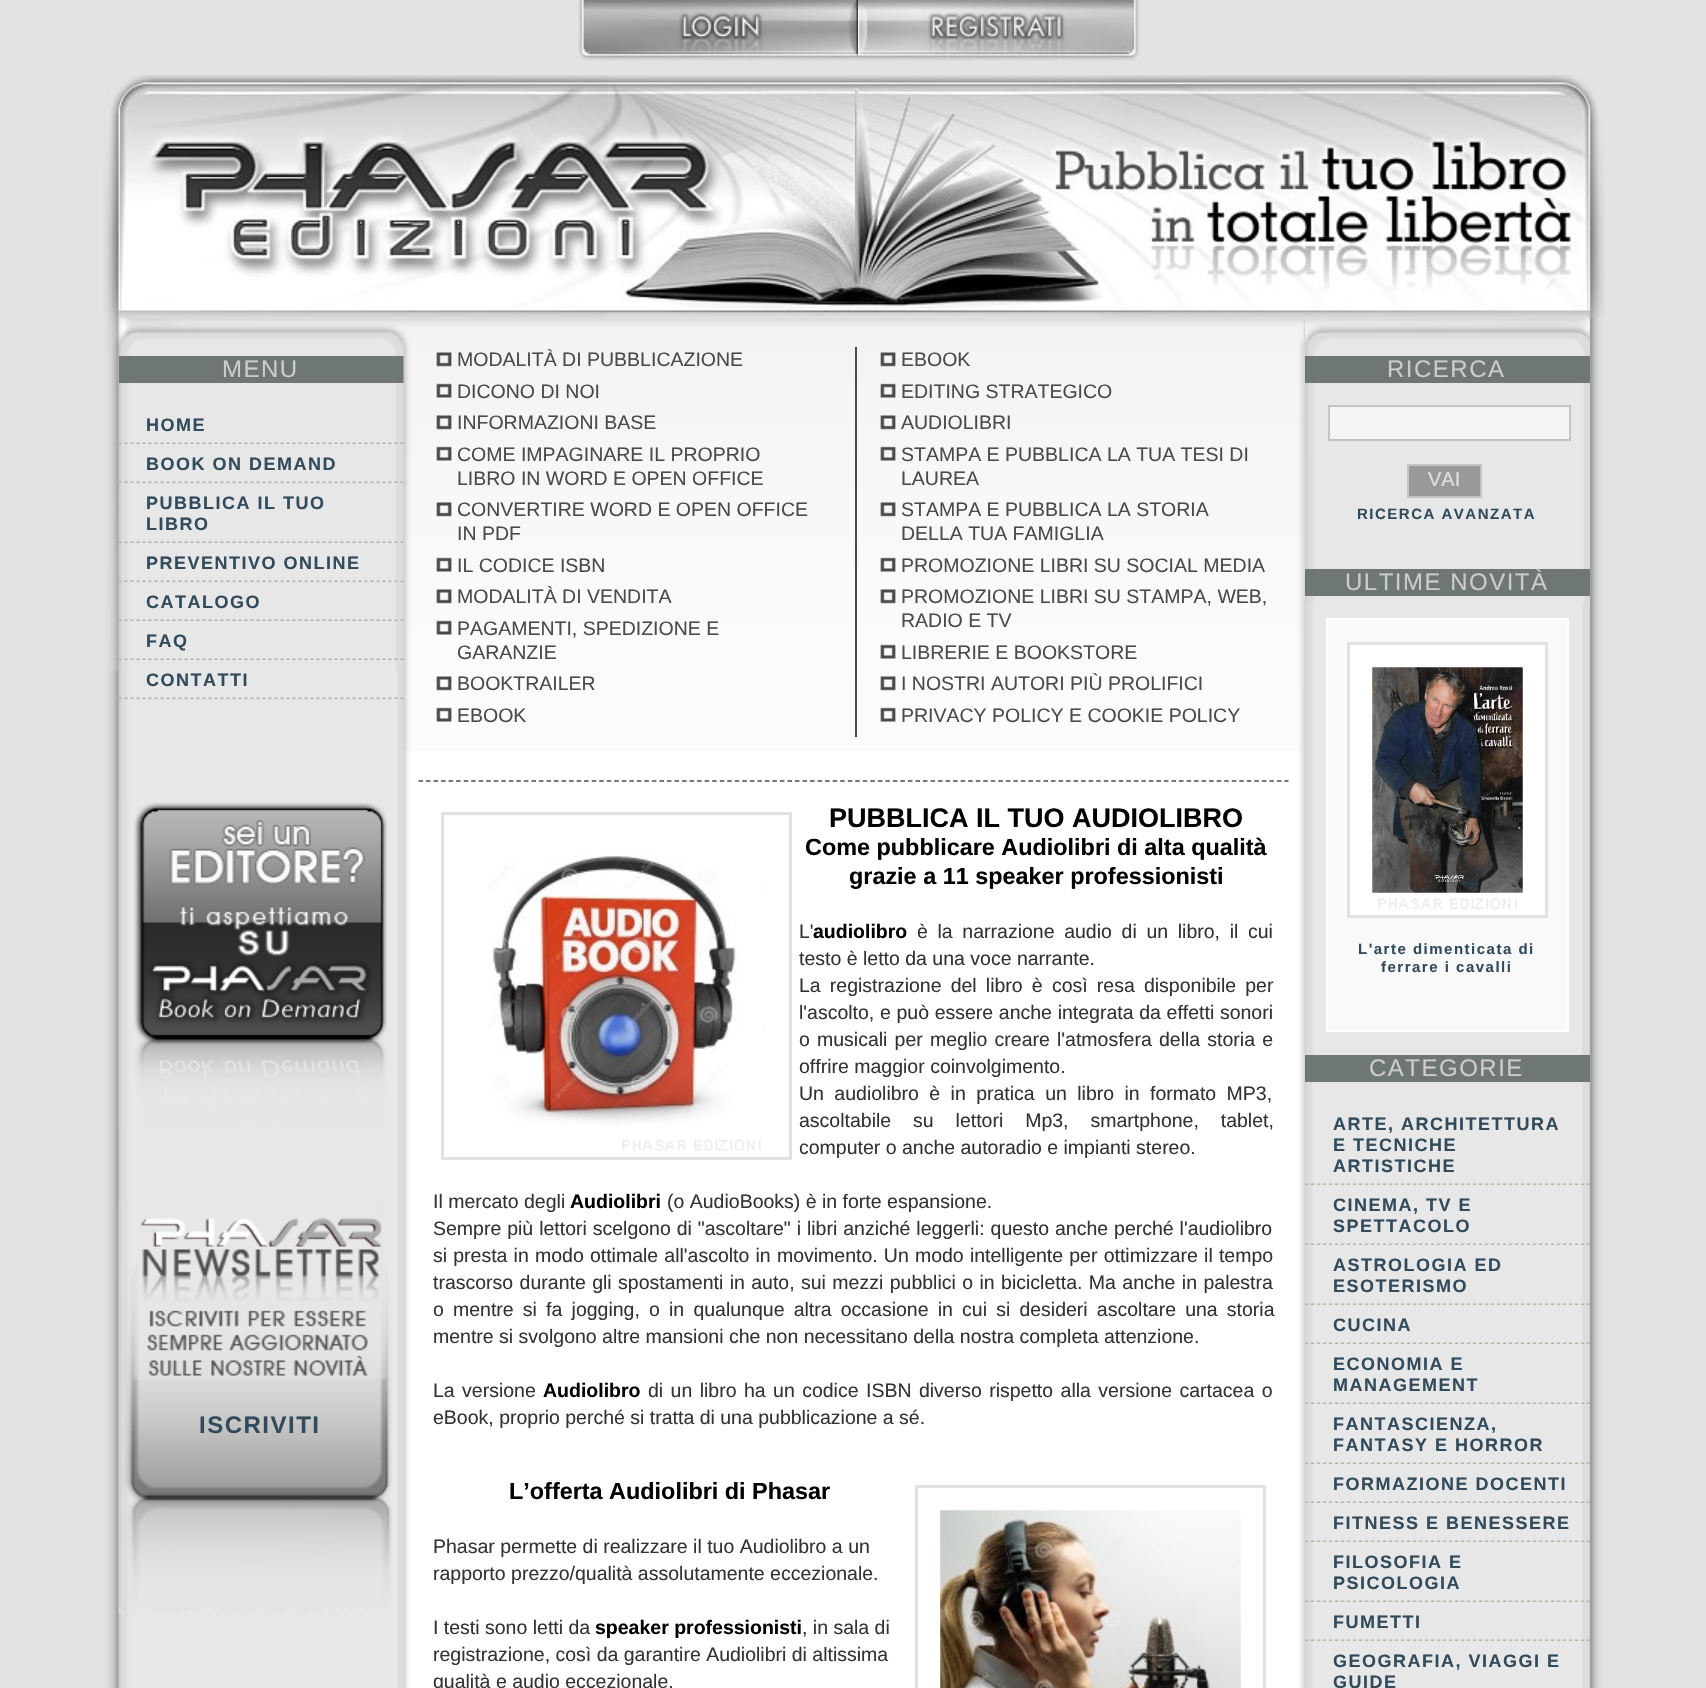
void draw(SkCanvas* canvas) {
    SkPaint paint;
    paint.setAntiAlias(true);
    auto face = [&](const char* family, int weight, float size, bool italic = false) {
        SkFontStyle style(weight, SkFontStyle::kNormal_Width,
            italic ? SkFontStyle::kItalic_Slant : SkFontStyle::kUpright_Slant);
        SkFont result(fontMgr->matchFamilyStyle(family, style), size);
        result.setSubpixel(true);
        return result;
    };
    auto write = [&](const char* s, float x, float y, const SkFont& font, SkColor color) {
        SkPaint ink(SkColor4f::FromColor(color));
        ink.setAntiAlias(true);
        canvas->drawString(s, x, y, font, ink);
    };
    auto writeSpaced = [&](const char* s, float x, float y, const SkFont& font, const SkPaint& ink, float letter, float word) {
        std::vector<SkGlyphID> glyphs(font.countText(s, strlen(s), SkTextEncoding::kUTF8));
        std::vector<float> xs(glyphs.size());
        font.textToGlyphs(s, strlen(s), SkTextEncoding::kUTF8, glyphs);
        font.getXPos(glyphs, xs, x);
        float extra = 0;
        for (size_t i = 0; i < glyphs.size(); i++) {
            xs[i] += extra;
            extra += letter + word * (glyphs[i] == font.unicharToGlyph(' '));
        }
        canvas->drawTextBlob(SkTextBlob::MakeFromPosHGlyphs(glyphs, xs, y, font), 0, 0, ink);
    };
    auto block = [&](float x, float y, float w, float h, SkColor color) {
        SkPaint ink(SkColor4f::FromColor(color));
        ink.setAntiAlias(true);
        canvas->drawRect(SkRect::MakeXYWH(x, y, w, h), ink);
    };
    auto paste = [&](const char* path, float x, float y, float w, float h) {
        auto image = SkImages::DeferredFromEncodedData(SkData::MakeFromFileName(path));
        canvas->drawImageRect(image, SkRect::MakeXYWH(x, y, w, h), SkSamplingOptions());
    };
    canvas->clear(SkColorSetRGB(227, 227, 227));
    paste("pic1.png", 578, 0, 280, 61);
    paste("pic2.png", 858, 0, 282, 61);
    paste("pic3.png", 106, 318, 1496, 1370);
    paste("pic4.png", 103, 75, 1502, 243);
    paste("pic5.png", 105, 318, 299, 353);
    block(119, 356, 285, 27, SkColorSetRGB(111, 119, 116));
    auto kFont1 = face("Liberation Sans", 400, 24);
    paint.setColor(SkColorSetRGB(204, 204, 204));
    writeSpaced("MENU", 222, 377, kFont1, paint, 1.5f, 0);
    paste("pic6.png", 118, 442, 286, 2);
    auto kFont2 = face("Liberation Sans", 700, 18);
    paint.setColor(SkColorSetRGB(49, 75, 92));
    writeSpaced("HOME", 146, 431, kFont2, paint, 1.5f, 0);
    paste("pic7.png", 118, 481, 286, 2);
    writeSpaced("BOOK ON DEMAND", 146, 470, kFont2, paint, 1.5f, 0);
    paste("pic8.png", 118, 541, 286, 2);
    writeSpaced("PUBBLICA IL TUO", 146, 509, kFont2, paint, 1.5f, 0);
    writeSpaced("LIBRO", 146, 530, kFont2, paint, 1.5f, 0);
    paste("pic9.png", 118, 580, 286, 2);
    writeSpaced("PREVENTIVO ONLINE", 146, 569, kFont2, paint, 1.5f, 0);
    paste("pic10.png", 118, 619, 286, 2);
    writeSpaced("CATALOGO", 146, 608, kFont2, paint, 1.5f, 0);
    paste("pic11.png", 118, 658, 286, 2);
    writeSpaced("FAQ", 146, 647, kFont2, paint, 1.5f, 0);
    paste("pic12.png", 118, 697, 286, 2);
    writeSpaced("CONTATTI", 146, 686, kFont2, paint, 1.5f, 0);
    paste("pic13.png", 118, 796, 270, 332);
    paste("pic14.png", 118, 1201, 274, 412);
    auto kFont3 = face("Liberation Sans", 700, 24);
    writeSpaced("ISCRIVITI", 199, 1433, kFont3, paint, 1.5f, 0);
    paste("pic15.png", 403, 318, 901, 433);
    paint.setStyle(SkPaint::kStroke_Style);
    paint.setStrokeWidth(1.5f);
    paint.setColor(SkColorSetRGB(75, 74, 74));
    paint.setPathEffect(SkDashPathEffect::Make({{4.5f, 3.03f}}, 0));
    canvas->drawPath(SkPathBuilder().moveTo(418.5f, 781).lineTo(1288.5f, 781).detach(), paint);
    paint.setPathEffect(nullptr);
    paste("pic16.png", 436, 352, 16, 15);
    auto kFont4 = face("Liberation Sans", 400, 19.5f);
    write("MODALITÀ DI PUBBLICAZIONE", 457, 366, kFont4, SkColorSetRGB(75, 74, 74));
    paste("pic17.png", 436, 383, 16, 15);
    write("DICONO DI NOI", 457, 398, kFont4, SkColorSetRGB(75, 74, 74));
    paste("pic18.png", 436, 415, 16, 15);
    write("INFORMAZIONI BASE", 457, 429, kFont4, SkColorSetRGB(75, 74, 74));
    paste("pic19.png", 436, 446, 16, 15);
    write("COME IMPAGINARE IL PROPRIO", 457, 461, kFont4, SkColorSetRGB(75, 74, 74));
    write("LIBRO IN WORD E OPEN OFFICE", 457, 485, kFont4, SkColorSetRGB(75, 74, 74));
    paste("pic20.png", 436, 502, 16, 15);
    write("CONVERTIRE WORD E OPEN OFFICE", 457, 516, kFont4, SkColorSetRGB(75, 74, 74));
    write("IN PDF", 457, 540, kFont4, SkColorSetRGB(75, 74, 74));
    paste("pic21.png", 436, 557, 16, 15);
    write("IL CODICE ISBN", 457, 572, kFont4, SkColorSetRGB(75, 74, 74));
    paste("pic22.png", 436, 589, 16, 15);
    write("MODALITÀ DI VENDITA", 457, 603, kFont4, SkColorSetRGB(75, 74, 74));
    paste("pic23.png", 436, 620, 16, 15);
    write("PAGAMENTI, SPEDIZIONE E", 457, 635, kFont4, SkColorSetRGB(75, 74, 74));
    write("GARANZIE", 457, 659, kFont4, SkColorSetRGB(75, 74, 74));
    paste("pic24.png", 436, 676, 16, 15);
    write("BOOKTRAILER", 457, 690, kFont4, SkColorSetRGB(75, 74, 74));
    paste("pic25.png", 436, 707, 16, 15);
    write("EBOOK", 457, 722, kFont4, SkColorSetRGB(75, 74, 74));
    block(855, 347, 2, 390, SkColorSetRGB(75, 74, 74));
    paste("pic16.png", 880, 352, 16, 15);
    write("EBOOK", 901, 366, kFont4, SkColorSetRGB(75, 74, 74));
    paste("pic17.png", 880, 383, 16, 15);
    write("EDITING STRATEGICO", 901, 398, kFont4, SkColorSetRGB(75, 74, 74));
    paste("pic18.png", 880, 415, 16, 15);
    write("AUDIOLIBRI", 901, 429, kFont4, SkColorSetRGB(75, 74, 74));
    paste("pic19.png", 880, 446, 16, 15);
    write("STAMPA E PUBBLICA LA TUA TESI DI", 901, 461, kFont4, SkColorSetRGB(75, 74, 74));
    write("LAUREA", 901, 485, kFont4, SkColorSetRGB(75, 74, 74));
    paste("pic20.png", 880, 502, 16, 15);
    write("STAMPA E PUBBLICA LA STORIA", 901, 516, kFont4, SkColorSetRGB(75, 74, 74));
    write("DELLA TUA FAMIGLIA", 901, 540, kFont4, SkColorSetRGB(75, 74, 74));
    paste("pic21.png", 880, 557, 16, 15);
    write("PROMOZIONE LIBRI SU SOCIAL MEDIA", 901, 572, kFont4, SkColorSetRGB(75, 74, 74));
    paste("pic22.png", 880, 589, 16, 15);
    write("PROMOZIONE LIBRI SU STAMPA, WEB,", 901, 603, kFont4, SkColorSetRGB(75, 74, 74));
    write("RADIO E TV", 901, 627, kFont4, SkColorSetRGB(75, 74, 74));
    paste("pic26.png", 880, 644, 16, 15);
    write("LIBRERIE E BOOKSTORE", 901, 659, kFont4, SkColorSetRGB(75, 74, 74));
    paste("pic24.png", 880, 676, 16, 15);
    write("I NOSTRI AUTORI PIÙ PROLIFICI", 901, 690, kFont4, SkColorSetRGB(75, 74, 74));
    paste("pic25.png", 880, 707, 16, 15);
    write("PRIVACY POLICY E COOKIE POLICY", 901, 722, kFont4, SkColorSetRGB(75, 74, 74));
    paste("pic27.png", 488, 854, 278, 297);
    paint.setStrokeWidth(3);
    paint.setColor(SkColorSetRGB(225, 225, 225));
    canvas->drawRect(SkRect::MakeXYWH(442.5f, 813.5f, 348, 345), paint);
    auto kFont5 = face("Liberation Sans", 700, 27);
    write("PUBBLICA IL TUO AUDIOLIBRO", 829, 827, kFont5, SK_ColorBLACK);
    auto kFont6 = face("Liberation Sans", 700, 23.4f);
    write("Come pubblicare Audiolibri di alta qualità", 805, 855, kFont6, SK_ColorBLACK);
    write("grazie a 11 speaker professionisti", 849, 884, kFont6, SK_ColorBLACK);
    write("L'", 799, 938, kFont4, SkColorSetRGB(51, 51, 51));
    auto kFont7 = face("Liberation Sans", 700, 19.5f);
    write("audiolibro", 813, 938, kFont7, SK_ColorBLACK);
    paint.setStyle(SkPaint::kFill_Style);
    paint.setColor(SkColorSetRGB(51, 51, 51));
    writeSpaced("è la narrazione audio di un libro, il cui", 917, 938, kFont4, paint, 0, 4.25f);
    write("testo è letto da una voce narrante.", 799, 965, kFont4, SkColorSetRGB(51, 51, 51));
    writeSpaced("La registrazione del libro è così resa disponibile per", 799, 992, kFont4, paint, 0, 3.75f);
    writeSpaced("l'ascolto, e può essere anche integrata da effetti sonori", 799, 1019, kFont4, paint, 0, 0.25f);
    writeSpaced("o musicali per meglio creare l'atmosfera della storia e", 799, 1046, kFont4, paint, 0, 1.75f);
    write("offrire maggior coinvolgimento.", 799, 1073, kFont4, SkColorSetRGB(51, 51, 51));
    writeSpaced("Un audiolibro è in pratica un libro in formato MP3,", 799, 1100, kFont4, paint, 0, 5);
    writeSpaced("ascoltabile su lettori Mp3, smartphone, tablet,", 799, 1127, kFont4, paint, 0, 16.5f);
    write("computer o anche autoradio e impianti stereo.", 799, 1154, kFont4, SkColorSetRGB(51, 51, 51));
    write("Il mercato degli", 433, 1208, kFont4, SkColorSetRGB(51, 51, 51));
    write("Audiolibri", 570, 1208, kFont7, SK_ColorBLACK);
    write("(o AudioBooks) è in forte espansione.", 667, 1208, kFont4, SkColorSetRGB(51, 51, 51));
    writeSpaced("Sempre più lettori scelgono di \"ascoltare\" i libri anziché leggerli: questo anche perché l'audiolibro", 433, 1235, kFont4, paint, 0, 0.5f);
    writeSpaced("si presta in modo ottimale all'ascolto in movimento. Un modo intelligente per ottimizzare il tempo", 433, 1262, kFont4, paint, 0, 0.75f);
    writeSpaced("trascorso durante gli spostamenti in auto, sui mezzi pubblici o in bicicletta. Ma anche in palestra", 433, 1289, kFont4, paint, 0, 1);
    writeSpaced("o mentre si fa jogging, o in qualunque altra occasione in cui si desideri ascoltare una storia", 433, 1316, kFont4, paint, 0, 3.75f);
    write("mentre si svolgono altre mansioni che non necessitano della nostra completa attenzione.", 433, 1343, kFont4, SkColorSetRGB(51, 51, 51));
    writeSpaced("La versione", 433, 1397, kFont4, paint, 0, 2);
    write("Audiolibro", 543, 1397, kFont7, SK_ColorBLACK);
    writeSpaced("di un libro ha un codice ISBN diverso rispetto alla versione cartacea o", 648, 1397, kFont4, paint, 0, 2);
    write("eBook, proprio perché si tratta di una pubblicazione a sé.", 433, 1424, kFont4, SkColorSetRGB(51, 51, 51));
    write("L’offerta Audiolibri di Phasar", 509, 1499, kFont6, SK_ColorBLACK);
    paste("pic28.png", 940, 1510, 301, 178);
    paint.setStyle(SkPaint::kStroke_Style);
    paint.setColor(SkColorSetRGB(225, 225, 225));
    canvas->drawRect(SkRect::MakeXYWH(916.5f, 1486.5f, 348, 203), paint);
    paste("pic29.png", 940, 1510, 301, 178);
    write("Phasar permette di realizzare il tuo Audiolibro a un", 433, 1553, kFont4, SkColorSetRGB(51, 51, 51));
    write("rapporto prezzo/qualità assolutamente eccezionale.", 433, 1580, kFont4, SkColorSetRGB(51, 51, 51));
    write("I testi sono letti da", 433, 1634, kFont4, SkColorSetRGB(51, 51, 51));
    write("speaker professionisti", 595, 1634, kFont7, SK_ColorBLACK);
    write(", in sala di", 802, 1634, kFont4, SkColorSetRGB(51, 51, 51));
    write("registrazione, così da garantire Audiolibri di altissima", 433, 1661, kFont4, SkColorSetRGB(51, 51, 51));
    write("qualità e audio eccezionale.", 433, 1688, kFont4, SkColorSetRGB(51, 51, 51));
    paste("pic30.png", 1305, 318, 285, 285);
    block(1305, 356, 285, 27, SkColorSetRGB(111, 119, 116));
    paint.setStyle(SkPaint::kFill_Style);
    paint.setColor(SkColorSetRGB(204, 204, 204));
    writeSpaced("RICERCA", 1387, 377, kFont1, paint, 1.5f, 0);
    paint.setColor(SkColorSetRGB(245, 245, 245));
    canvas->drawRect(SkRect::MakeXYWH(1329, 406, 241, 34), paint);
    paint.setStyle(SkPaint::kStroke_Style);
    paint.setStrokeWidth(2);
    paint.setColor(SkColorSetRGB(196, 196, 196));
    canvas->drawRect(SkRect::MakeXYWH(1329, 406, 241, 34), paint);
    paint.setStyle(SkPaint::kFill_Style);
    paint.setColor(SkColorSetRGB(153, 153, 153));
    canvas->drawRect(SkRect::MakeXYWH(1408, 465, 73, 32), paint);
    paint.setStyle(SkPaint::kStroke_Style);
    paint.setColor(SkColorSetRGB(196, 196, 196));
    canvas->drawRect(SkRect::MakeXYWH(1408, 465, 73, 32), paint);
    auto kFont8 = face("Liberation Sans", 400, 20);
    write("VAI", 1428, 486, kFont8, SkColorSetRGB(225, 225, 225));
    auto kFont9 = face("Liberation Sans", 700, 15);
    paint.setStyle(SkPaint::kFill_Style);
    paint.setColor(SkColorSetRGB(49, 75, 92));
    writeSpaced("RICERCA AVANZATA", 1357, 519, kFont9, paint, 1.5f, 0);
    block(1305, 569, 285, 27, SkColorSetRGB(111, 119, 116));
    paint.setColor(SkColorSetRGB(204, 204, 204));
    writeSpaced("ULTIME NOVITÀ", 1345, 590, kFont1, paint, 1.5f, 0);
    paint.setColor(SkColorSetRGB(249, 249, 249));
    canvas->drawRect(SkRect::MakeXYWH(1327, 619, 241, 412), paint);
    paint.setStyle(SkPaint::kStroke_Style);
    paint.setColor(SK_ColorWHITE);
    canvas->drawRect(SkRect::MakeXYWH(1327, 619, 241, 412), paint);
    block(1350, 645, 195, 270, SK_ColorWHITE);
    paste("pic31.png", 1372, 667, 151, 243);
    paint.setStrokeWidth(3);
    paint.setColor(SkColorSetRGB(225, 225, 225));
    canvas->drawRect(SkRect::MakeXYWH(1348.5f, 643.5f, 198, 273), paint);
    paste("pic32.png", 1372, 667, 151, 226);
    paint.setStyle(SkPaint::kFill_Style);
    paint.setColor(SkColorSetRGB(49, 75, 92));
    writeSpaced("L'arte dimenticata di", 1358, 954, kFont9, paint, 1.5f, 0);
    writeSpaced("ferrare i cavalli", 1381, 972, kFont9, paint, 1.5f, 0);
    block(1305, 1055, 285, 27, SkColorSetRGB(111, 119, 116));
    paint.setColor(SkColorSetRGB(204, 204, 204));
    writeSpaced("CATEGORIE", 1369, 1076, kFont1, paint, 1.5f, 0);
    paste("pic33.png", 1305, 1183, 285, 2);
    paint.setColor(SkColorSetRGB(49, 75, 92));
    writeSpaced("ARTE, ARCHITETTURA", 1333, 1130, kFont2, paint, 1.5f, 0);
    writeSpaced("E TECNICHE", 1333, 1151, kFont2, paint, 1.5f, 0);
    writeSpaced("ARTISTICHE", 1333, 1172, kFont2, paint, 1.5f, 0);
    paste("pic34.png", 1305, 1243, 285, 2);
    writeSpaced("CINEMA, TV E", 1333, 1211, kFont2, paint, 1.5f, 0);
    writeSpaced("SPETTACOLO", 1333, 1232, kFont2, paint, 1.5f, 0);
    paste("pic33.png", 1305, 1303, 285, 2);
    writeSpaced("ASTROLOGIA ED", 1333, 1271, kFont2, paint, 1.5f, 0);
    writeSpaced("ESOTERISMO", 1333, 1292, kFont2, paint, 1.5f, 0);
    paste("pic33.png", 1305, 1342, 285, 2);
    writeSpaced("CUCINA", 1333, 1331, kFont2, paint, 1.5f, 0);
    paste("pic33.png", 1305, 1402, 285, 2);
    writeSpaced("ECONOMIA E", 1333, 1370, kFont2, paint, 1.5f, 0);
    writeSpaced("MANAGEMENT", 1333, 1391, kFont2, paint, 1.5f, 0);
    paste("pic33.png", 1305, 1462, 285, 2);
    writeSpaced("FANTASCIENZA,", 1333, 1430, kFont2, paint, 1.5f, 0);
    writeSpaced("FANTASY E HORROR", 1333, 1451, kFont2, paint, 1.5f, 0);
    paste("pic34.png", 1305, 1501, 285, 2);
    writeSpaced("FORMAZIONE DOCENTI", 1333, 1490, kFont2, paint, 1.5f, 0);
    paste("pic33.png", 1305, 1540, 285, 2);
    writeSpaced("FITNESS E BENESSERE", 1333, 1529, kFont2, paint, 1.5f, 0);
    paste("pic33.png", 1305, 1600, 285, 2);
    writeSpaced("FILOSOFIA E", 1333, 1568, kFont2, paint, 1.5f, 0);
    writeSpaced("PSICOLOGIA", 1333, 1589, kFont2, paint, 1.5f, 0);
    paste("pic34.png", 1305, 1639, 285, 2);
    writeSpaced("FUMETTI", 1333, 1628, kFont2, paint, 1.5f, 0);
    writeSpaced("GEOGRAFIA, VIAGGI E", 1333, 1667, kFont2, paint, 1.5f, 0);
    writeSpaced("GUIDE", 1333, 1688, kFont2, paint, 1.5f, 0);
}
